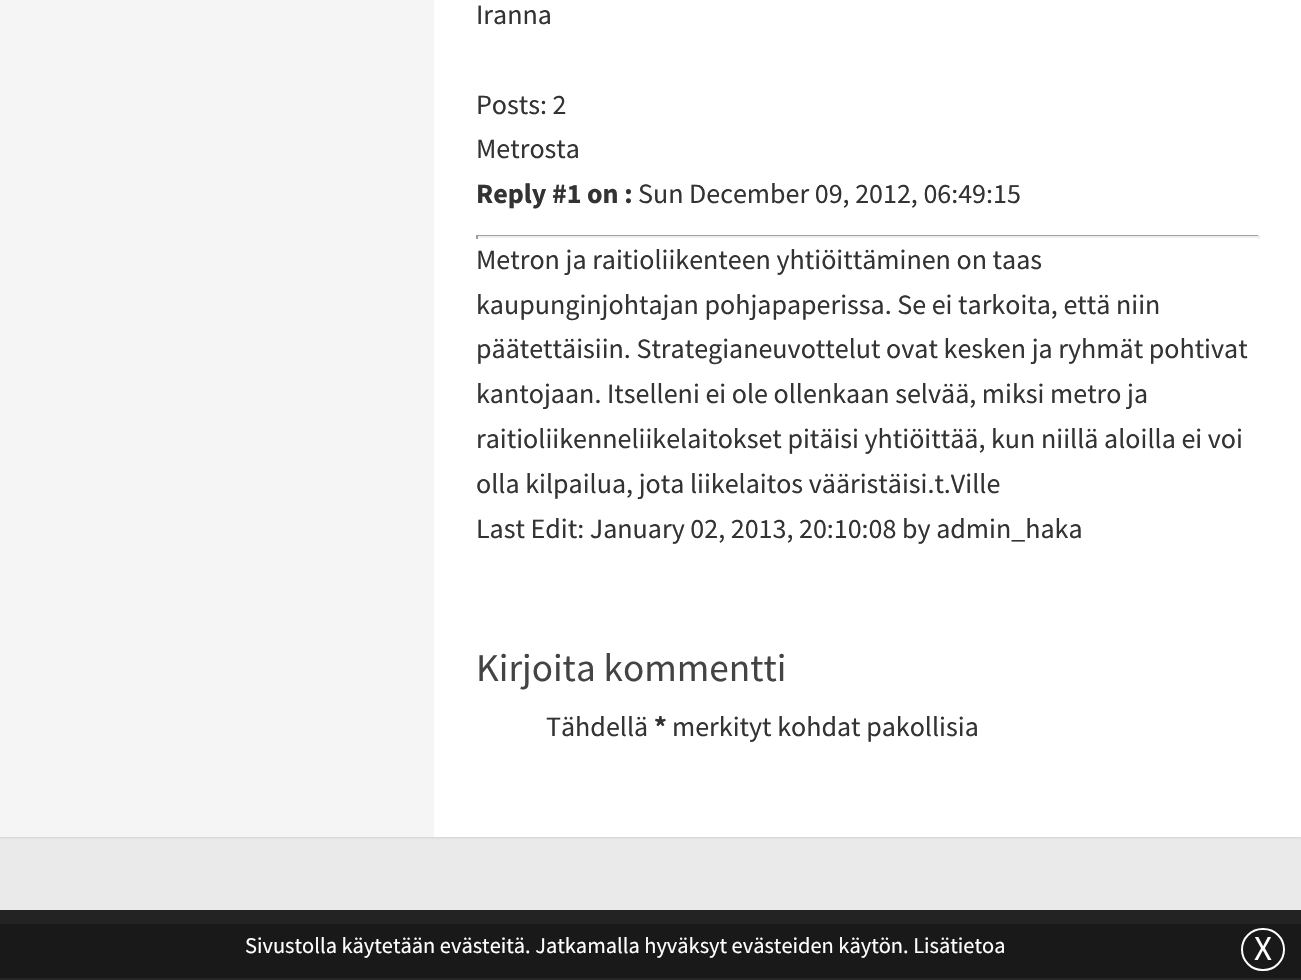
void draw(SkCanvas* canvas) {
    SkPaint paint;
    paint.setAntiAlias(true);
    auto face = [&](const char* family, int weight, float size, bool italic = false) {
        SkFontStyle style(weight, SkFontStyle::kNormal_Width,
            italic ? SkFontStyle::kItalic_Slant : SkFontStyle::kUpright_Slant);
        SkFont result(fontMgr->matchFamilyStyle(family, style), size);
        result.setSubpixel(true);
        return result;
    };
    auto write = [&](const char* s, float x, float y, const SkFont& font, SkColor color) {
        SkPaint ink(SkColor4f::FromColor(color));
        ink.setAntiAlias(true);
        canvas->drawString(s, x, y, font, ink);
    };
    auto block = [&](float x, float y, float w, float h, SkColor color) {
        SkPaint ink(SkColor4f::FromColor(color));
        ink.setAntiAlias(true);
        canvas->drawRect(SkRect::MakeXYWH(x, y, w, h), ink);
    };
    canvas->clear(SkColorSetRGB(234, 234, 234));
    block(0, 910, 1301, 14, SkColorSetRGB(35, 35, 35));
    paint.setColor(SkColorSetARGB(26, 0, 0, 0));
    paint.setMaskFilter(SkMaskFilter::MakeBlur(kNormal_SkBlurStyle, 1));
    canvas->drawRect(SkRect::MakeXYWH(0, -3, 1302, 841), paint);
    paint.setMaskFilter(nullptr);
    block(0, 0, 434, 837, SkColorSetRGB(245, 245, 245));
    block(434, 0, 867, 837, SK_ColorWHITE);
    auto kFont1 = face("Source Sans Pro", 400, 28);
    write("Iranna", 476, 24, kFont1, SkColorSetRGB(51, 51, 51));
    write("Posts: 2", 476, 114, kFont1, SkColorSetRGB(51, 51, 51));
    write("Metrosta", 476, 158, kFont1, SkColorSetRGB(51, 51, 51));
    auto kFont2 = face("Source Sans Pro", 700, 28);
    write("Reply #1 on :", 476, 203, kFont2, SkColorSetRGB(51, 51, 51));
    write("Sun December 09, 2012, 06:49:15", 638, 203, kFont1, SkColorSetRGB(51, 51, 51));
    block(476, 235, 784, 1, SkColorSetRGB(159, 159, 159));
    block(1258, 235, 2, 4, SkColorSetRGB(238, 238, 238));
    block(476, 236, 784, 2, SkColorSetRGB(238, 238, 238));
    block(476, 235, 2, 4, SkColorSetRGB(159, 159, 159));
    write("Metron ja raitioliikenteen yhtiöittäminen on taas", 476, 269, kFont1, SkColorSetRGB(51, 51, 51));
    write("kaupunginjohtajan pohjapaperissa. Se ei tarkoita, että niin", 476, 314, kFont1, SkColorSetRGB(51, 51, 51));
    write("päätettäisiin. Strategianeuvottelut ovat kesken ja ryhmät pohtivat", 476, 358, kFont1, SkColorSetRGB(51, 51, 51));
    write("kantojaan. Itselleni ei ole ollenkaan selvää, miksi metro ja", 476, 403, kFont1, SkColorSetRGB(51, 51, 51));
    write("raitioliikenneliikelaitokset pitäisi yhtiöittää, kun niillä aloilla ei voi", 476, 448, kFont1, SkColorSetRGB(51, 51, 51));
    write("olla kilpailua, jota liikelaitos vääristäisi.t.Ville", 476, 493, kFont1, SkColorSetRGB(51, 51, 51));
    write("Last Edit: January 02, 2013, 20:10:08 by admin_haka", 476, 538, kFont1, SkColorSetRGB(51, 51, 51));
    auto kFont3 = face("Source Sans Pro", 400, 39.25f);
    write("Kirjoita kommentti", 476, 681, kFont3, SkColorSetRGB(68, 68, 68));
    write("Tähdellä", 546, 736, kFont1, SkColorSetRGB(51, 51, 51));
    write("*", 654, 736, kFont2, SkColorSetRGB(51, 51, 51));
    write("merkityt kohdat pakollisia", 672, 736, kFont1, SkColorSetRGB(51, 51, 51));
    block(0, 924, 1301, 54, SkColorSetRGB(25, 25, 25));
    auto kFont4 = face("Source Sans Pro", 400, 22.4f);
    write("Sivustolla käytetään evästeitä. Jatkamalla hyväksyt evästeiden käytön. Lisätietoa", 245, 953, kFont4, SK_ColorWHITE);
    paint.setStyle(SkPaint::kStroke_Style);
    paint.setStrokeWidth(2);
    paint.setColor(SK_ColorWHITE);
    canvas->drawRoundRect(SkRect::MakeXYWH(1242, 929, 42, 41), 20.5f, 20.5f, paint);
    auto kFont5 = face("Source Sans Pro", 400, 35);
    write("X", 1254, 960, kFont5, SK_ColorWHITE);
    block(0, 978, 1301, 2, SkColorSetRGB(38, 38, 38));
}
